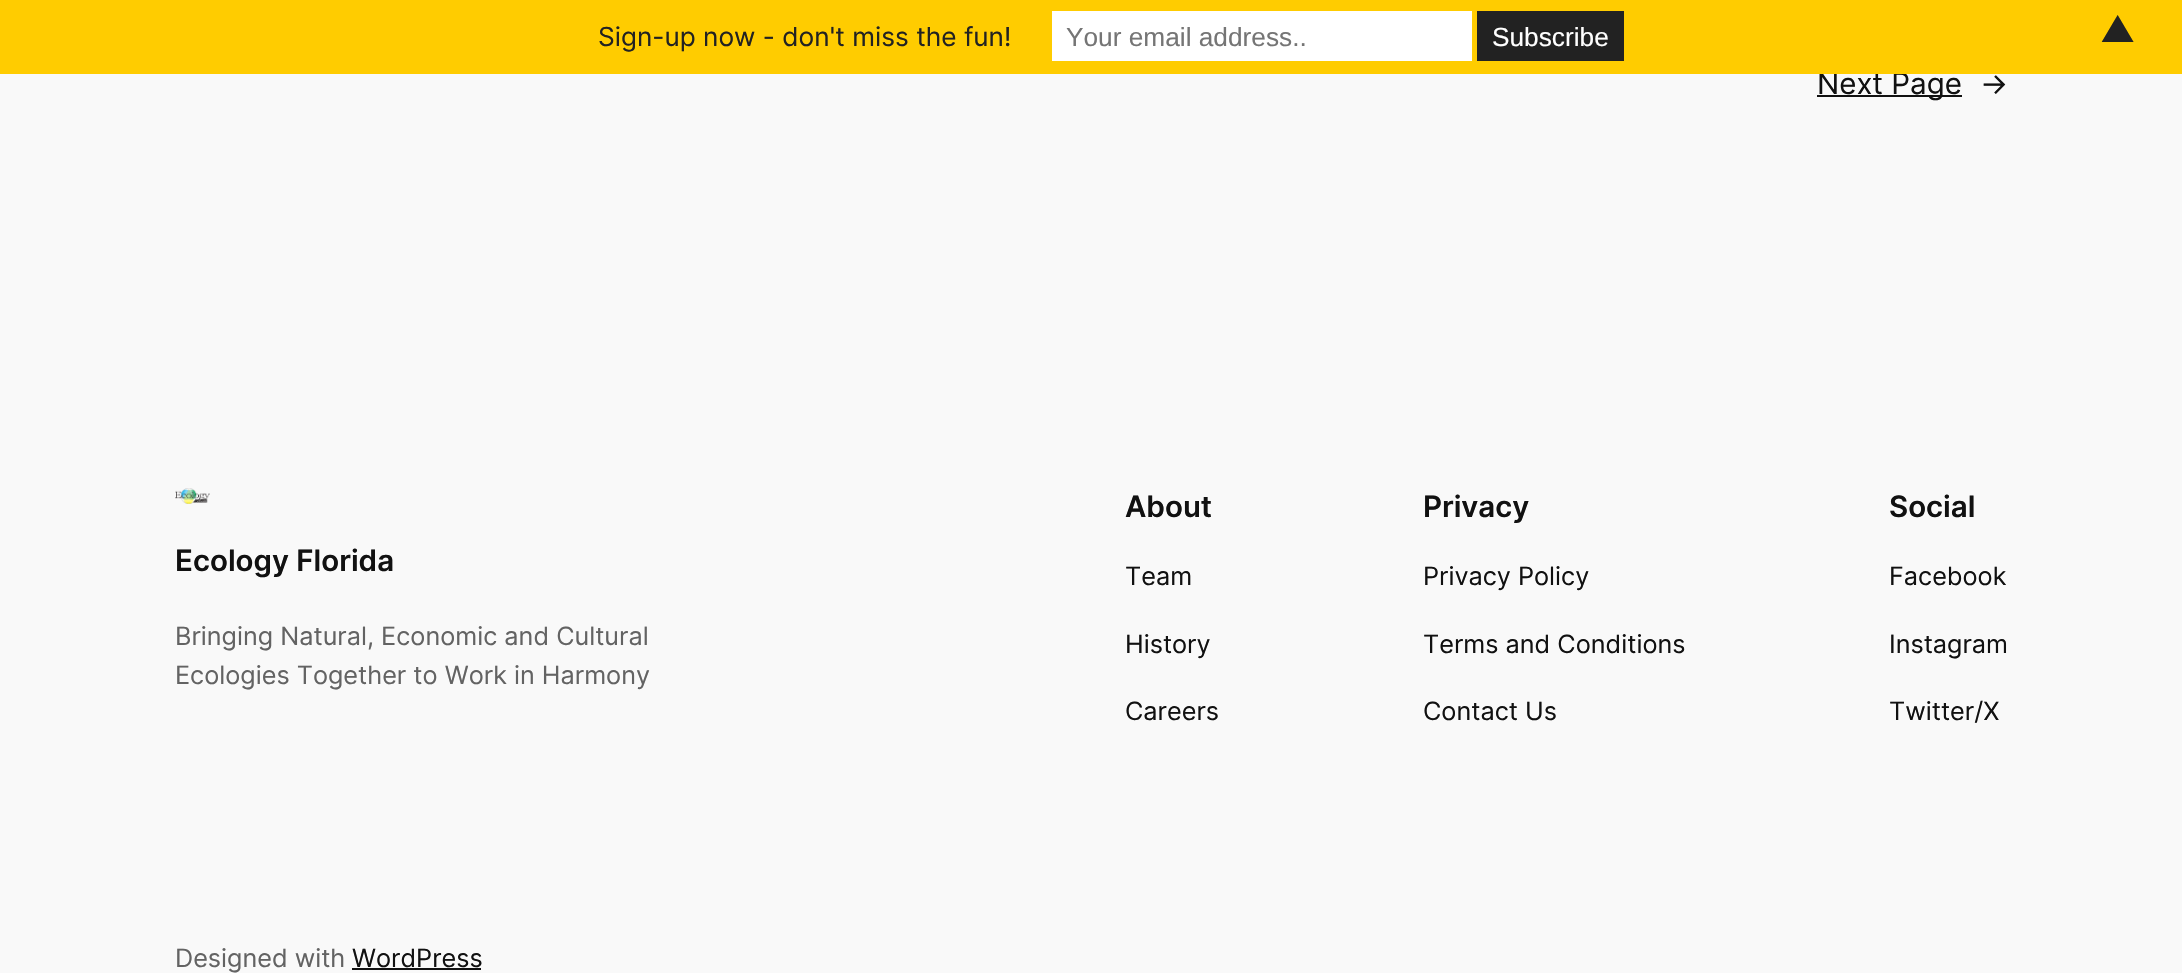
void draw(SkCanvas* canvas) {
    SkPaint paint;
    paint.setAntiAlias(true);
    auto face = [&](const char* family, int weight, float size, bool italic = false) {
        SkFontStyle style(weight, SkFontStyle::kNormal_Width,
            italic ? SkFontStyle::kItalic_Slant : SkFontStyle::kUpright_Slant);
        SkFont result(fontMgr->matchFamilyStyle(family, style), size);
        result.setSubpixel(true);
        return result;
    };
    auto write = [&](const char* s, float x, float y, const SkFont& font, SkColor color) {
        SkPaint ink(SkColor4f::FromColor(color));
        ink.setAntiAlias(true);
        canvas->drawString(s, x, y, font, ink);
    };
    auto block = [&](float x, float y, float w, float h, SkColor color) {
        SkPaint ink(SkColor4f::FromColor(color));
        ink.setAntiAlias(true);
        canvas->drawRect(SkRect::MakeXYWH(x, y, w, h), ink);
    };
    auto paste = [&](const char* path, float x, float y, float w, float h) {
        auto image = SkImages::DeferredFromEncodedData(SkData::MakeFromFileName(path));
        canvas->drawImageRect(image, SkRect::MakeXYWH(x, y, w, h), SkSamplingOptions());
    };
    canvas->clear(SkColorSetRGB(249, 249, 249));
    block(1817, 95, 145, 2, SkColorSetRGB(17, 17, 17));
    auto kFont1 = face("Inter", 400, 29.5f);
    write("Next Page", 1817, 94, kFont1, SkColorSetRGB(17, 17, 17));
    block(0, 0, 2182, 74, SkColorSetRGB(255, 204, 0));
    auto kFont2 = face("Inter", 400, 26.25f);
    write("Sign-up now - don't miss the fun!", 598, 46, kFont2, SkColorSetRGB(34, 34, 34));
    block(1052, 11, 420, 50, SK_ColorWHITE);
    auto kFont3 = face("Liberation Sans", 400, 26.25f);
    write("Your email address..", 1066, 46, kFont3, SkColorSetRGB(117, 117, 117));
    block(1477, 11, 147, 50, SkColorSetRGB(34, 34, 34));
    write("Subscribe", 1492, 46, kFont3, SK_ColorWHITE);
    auto kFont4 = face("Inter", 400, 35);
    write("▲", 2100, 42, kFont4, SkColorSetRGB(34, 34, 34));
    write("→", 1980, 94, kFont1, SkColorSetRGB(17, 17, 17));
    paste("pic1.png", 175, 488, 35, 16);
    auto kFont5 = face("Inter", 600, 29.5f);
    write("Ecology Florida", 175, 571, kFont5, SkColorSetRGB(17, 17, 17));
    auto kFont6 = face("Inter", 400, 25.25f);
    write("Bringing Natural, Economic and Cultural", 175, 645, kFont6, SkColorSetRGB(99, 99, 99));
    write("Ecologies Together to Work in Harmony", 175, 684, kFont6, SkColorSetRGB(99, 99, 99));
    write("About", 1125, 517, kFont5, SkColorSetRGB(17, 17, 17));
    write("Team", 1125, 585, kFont6, SkColorSetRGB(17, 17, 17));
    write("History", 1125, 653, kFont6, SkColorSetRGB(17, 17, 17));
    write("Careers", 1125, 720, kFont6, SkColorSetRGB(17, 17, 17));
    write("Privacy", 1423, 517, kFont5, SkColorSetRGB(17, 17, 17));
    write("Privacy Policy", 1423, 585, kFont6, SkColorSetRGB(17, 17, 17));
    write("Terms and Conditions", 1423, 653, kFont6, SkColorSetRGB(17, 17, 17));
    write("Contact Us", 1423, 720, kFont6, SkColorSetRGB(17, 17, 17));
    write("Social", 1889, 517, kFont5, SkColorSetRGB(17, 17, 17));
    write("Facebook", 1889, 585, kFont6, SkColorSetRGB(17, 17, 17));
    write("Instagram", 1889, 653, kFont6, SkColorSetRGB(17, 17, 17));
    write("Twitter/X", 1889, 720, kFont6, SkColorSetRGB(17, 17, 17));
    write("Designed with", 175, 967, kFont6, SkColorSetRGB(99, 99, 99));
    write("WordPress", 352, 967, kFont6, SkColorSetRGB(17, 17, 17));
    block(352, 968, 129, 2, SkColorSetRGB(17, 17, 17));
}
